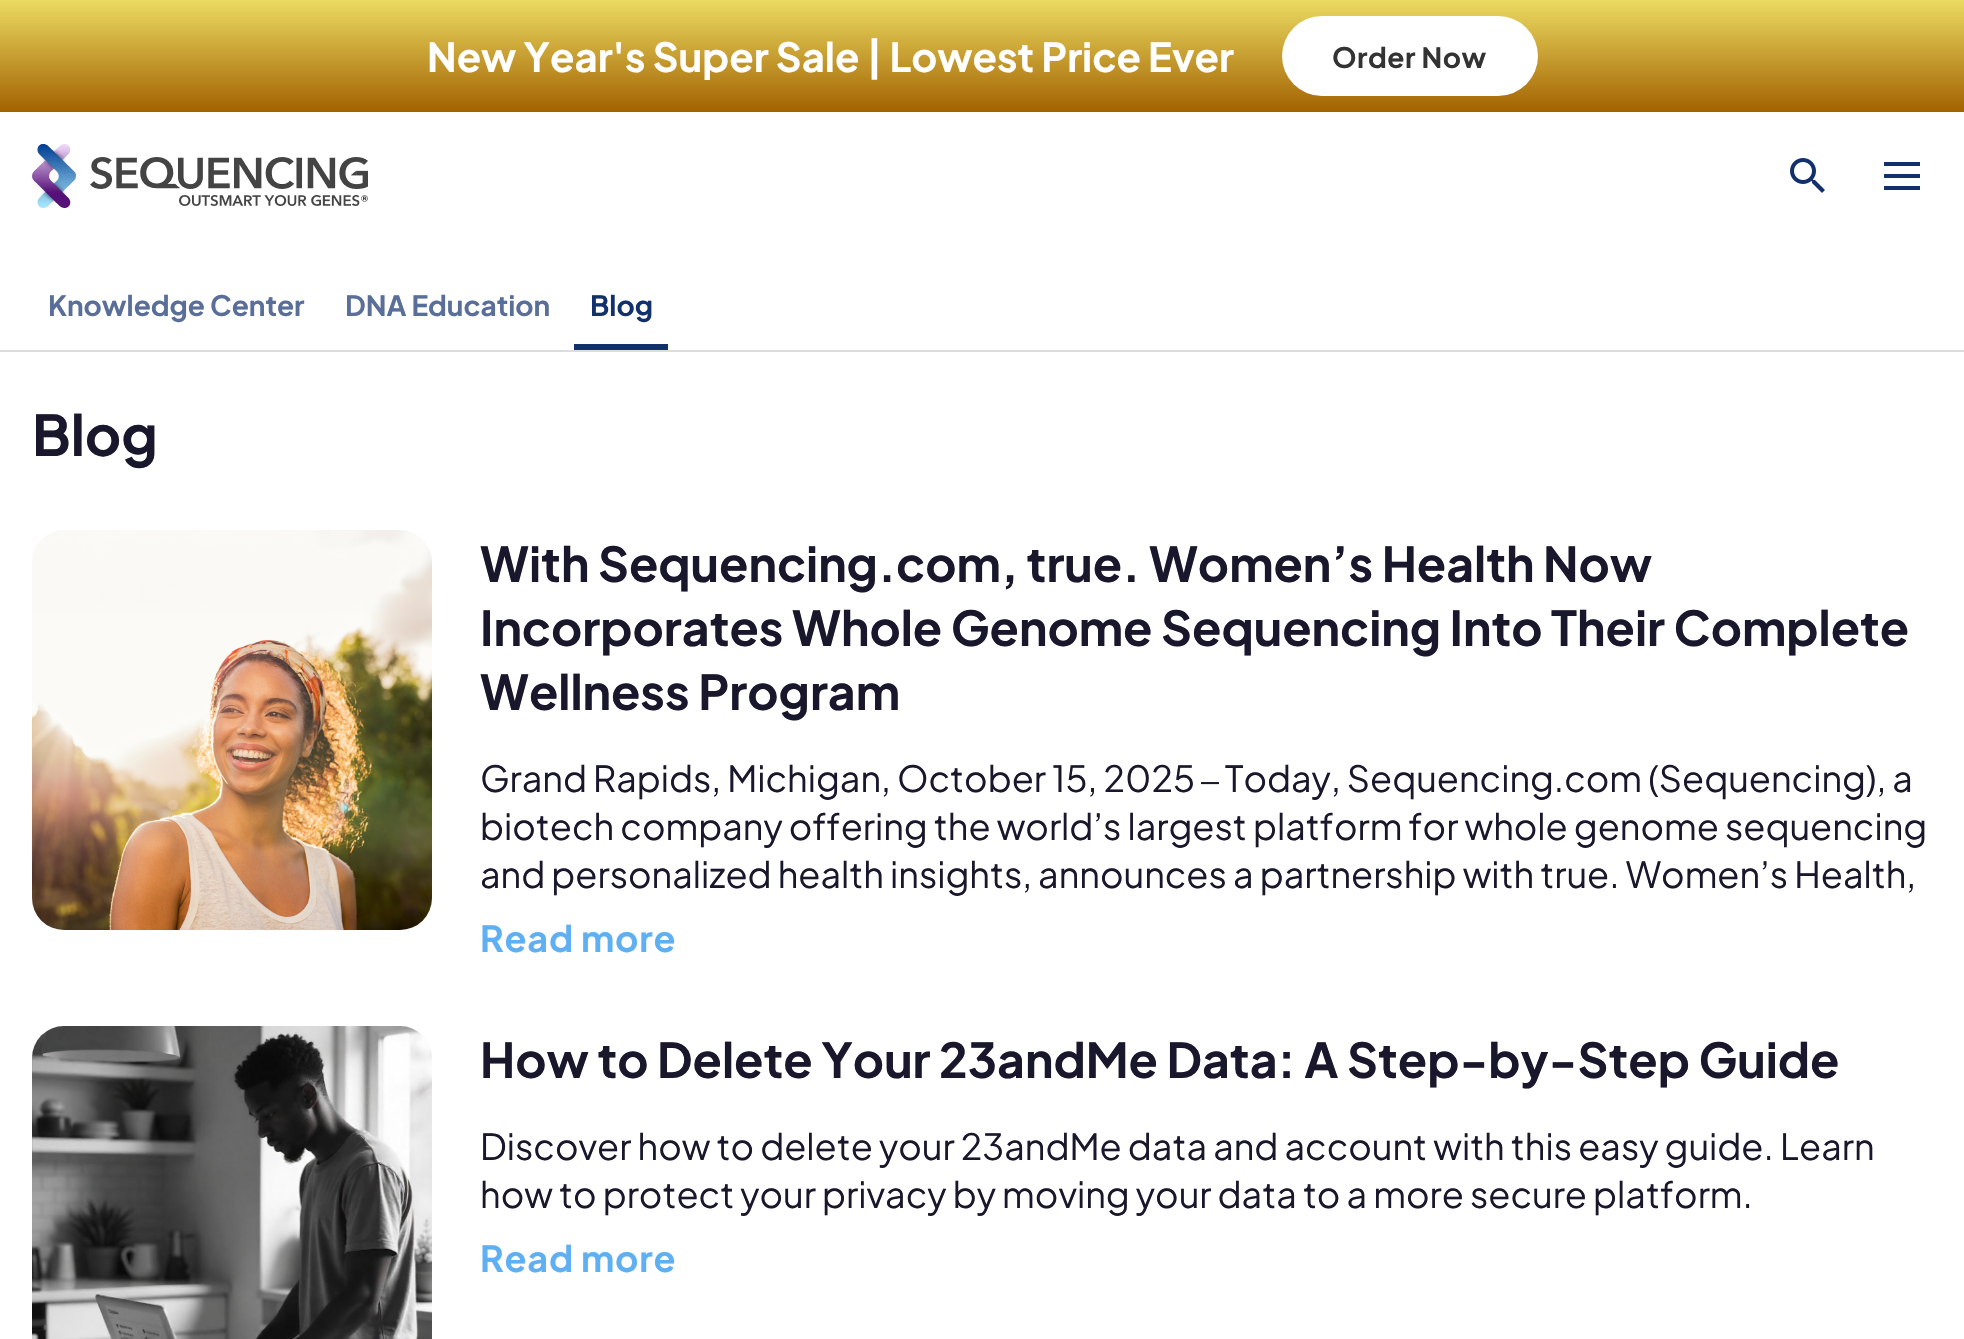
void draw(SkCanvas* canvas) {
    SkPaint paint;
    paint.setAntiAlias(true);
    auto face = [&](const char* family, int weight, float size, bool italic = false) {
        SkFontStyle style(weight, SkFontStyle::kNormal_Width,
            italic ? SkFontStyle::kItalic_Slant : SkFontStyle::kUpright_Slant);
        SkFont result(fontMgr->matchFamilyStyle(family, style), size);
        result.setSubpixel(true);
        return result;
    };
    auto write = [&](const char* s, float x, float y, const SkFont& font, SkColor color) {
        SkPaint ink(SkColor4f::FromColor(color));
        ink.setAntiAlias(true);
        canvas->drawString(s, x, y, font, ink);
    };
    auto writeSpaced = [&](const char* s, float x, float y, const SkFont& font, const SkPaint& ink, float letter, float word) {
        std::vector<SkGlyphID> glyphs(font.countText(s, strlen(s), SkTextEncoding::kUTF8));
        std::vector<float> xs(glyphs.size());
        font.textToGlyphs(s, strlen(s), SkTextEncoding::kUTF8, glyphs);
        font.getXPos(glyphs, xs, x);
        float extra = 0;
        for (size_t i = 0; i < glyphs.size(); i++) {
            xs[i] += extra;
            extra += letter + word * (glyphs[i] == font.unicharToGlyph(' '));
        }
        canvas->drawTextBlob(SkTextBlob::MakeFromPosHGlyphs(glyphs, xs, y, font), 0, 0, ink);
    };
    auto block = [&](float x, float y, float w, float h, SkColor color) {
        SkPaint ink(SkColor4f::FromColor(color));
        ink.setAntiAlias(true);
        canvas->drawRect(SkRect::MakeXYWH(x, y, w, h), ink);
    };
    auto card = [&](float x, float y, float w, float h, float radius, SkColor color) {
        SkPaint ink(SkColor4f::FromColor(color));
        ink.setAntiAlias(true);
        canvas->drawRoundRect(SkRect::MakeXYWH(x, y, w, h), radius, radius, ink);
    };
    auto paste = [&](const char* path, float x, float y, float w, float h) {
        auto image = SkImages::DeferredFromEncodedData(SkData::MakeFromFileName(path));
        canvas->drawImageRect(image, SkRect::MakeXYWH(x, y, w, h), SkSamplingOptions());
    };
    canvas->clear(SK_ColorWHITE);
    {
        const SkColor colors[] = {SkColorSetRGB(235, 219, 98), SkColorSetRGB(163, 98, 1)};
        const float stops[] = {0, 1};
        const SkPoint ends[] = {{982, 0}, {982, 112}};
        paint.setShader(SkGradientShader::MakeLinear(ends, colors, stops, 2, SkTileMode::kClamp));
        paint.setAlpha(255);
    }
    canvas->drawRect(SkRect::MakeXYWH(0, 0, 1964, 112), paint);
    auto kFont1 = face("Plus Jakarta Sans", 700, 40);
    write("New Year's Super Sale | Lowest Price Ever", 427, 72, kFont1, SK_ColorWHITE);
    card(1282, 16, 256, 80, 40, SK_ColorWHITE);
    auto kFont2 = face("Plus Jakarta Sans", 700, 28);
    paint.setShader(nullptr);
    paint.setColor(SkColorSetRGB(51, 51, 51));
    writeSpaced("Order Now", 1332, 68, kFont2, paint, 0.5f, 0);
    paste("pic1.png", 32, 144, 336, 64);
    paste("pic2.png", 1790, 158, 35, 35);
    paint.setColor(SkColorSetRGB(18, 48, 108));
    canvas->drawPath(SkPathBuilder().moveTo(1884, 162).lineTo(1884, 166).lineTo(1920, 166).lineTo(1920, 162).close().moveTo(1884, 178).lineTo(1920, 178).lineTo(1920, 174).lineTo(1884, 174).close().moveTo(1884, 190).lineTo(1920, 190).lineTo(1920, 186).lineTo(1884, 186).close().detach(), paint);
    write("Knowledge Center", 48, 316, kFont2, SkColorSetRGB(89, 110, 152));
    write("DNA Education", 345, 316, kFont2, SkColorSetRGB(89, 110, 152));
    block(574, 344, 94, 6, SkColorSetRGB(18, 48, 108));
    write("Blog", 590, 316, kFont2, SkColorSetRGB(18, 48, 108));
    block(0, 350, 1964, 2, SkColorSetRGB(221, 221, 221));
    auto kFont3 = face("Plus Jakarta Sans", 700, 56);
    write("Blog", 32, 456, kFont3, SkColorSetRGB(24, 23, 43));
    paste("pic3.png", 32, 530, 400, 400);
    auto kFont4 = face("Plus Jakarta Sans", 700, 48);
    write("With Sequencing.com, true. Women’s Health Now", 480, 582, kFont4, SkColorSetRGB(24, 23, 43));
    write("Incorporates Whole Genome Sequencing Into Their Complete", 480, 646, kFont4, SkColorSetRGB(24, 23, 43));
    write("Wellness Program", 480, 710, kFont4, SkColorSetRGB(24, 23, 43));
    auto kFont5 = face("Plus Jakarta Sans", 400, 36);
    write("Grand Rapids, Michigan, October 15, 2025", 480, 792, kFont5, SkColorSetRGB(24, 23, 43));
    auto kFont6 = face("FreeSans", 400, 36);
    write("⎯", 1201, 792, kFont6, SkColorSetRGB(24, 23, 43));
    write("Today, Sequencing.com (Sequencing), a", 1225, 792, kFont5, SkColorSetRGB(24, 23, 43));
    write("biotech company offering the world’s largest platform for whole genome sequencing", 480, 840, kFont5, SkColorSetRGB(24, 23, 43));
    write("and personalized health insights, announces a partnership with true. Women’s Health,", 480, 888, kFont5, SkColorSetRGB(24, 23, 43));
    auto kFont7 = face("Plus Jakarta Sans", 700, 36);
    paint.setColor(SkColorSetRGB(94, 176, 243));
    writeSpaced("Read more", 480, 952, kFont7, paint, 0.75f, 0);
    paste("pic4.png", 32, 1026, 400, 313);
    write("How to Delete Your 23andMe Data: A Step-by-Step Guide", 480, 1078, kFont4, SkColorSetRGB(24, 23, 43));
    write("Discover how to delete your 23andMe data and account with this easy guide. Learn", 480, 1160, kFont5, SkColorSetRGB(24, 23, 43));
    write("how to protect your privacy by moving your data to a more secure platform.", 480, 1208, kFont5, SkColorSetRGB(24, 23, 43));
    writeSpaced("Read more", 480, 1272, kFont7, paint, 0.75f, 0);
}
